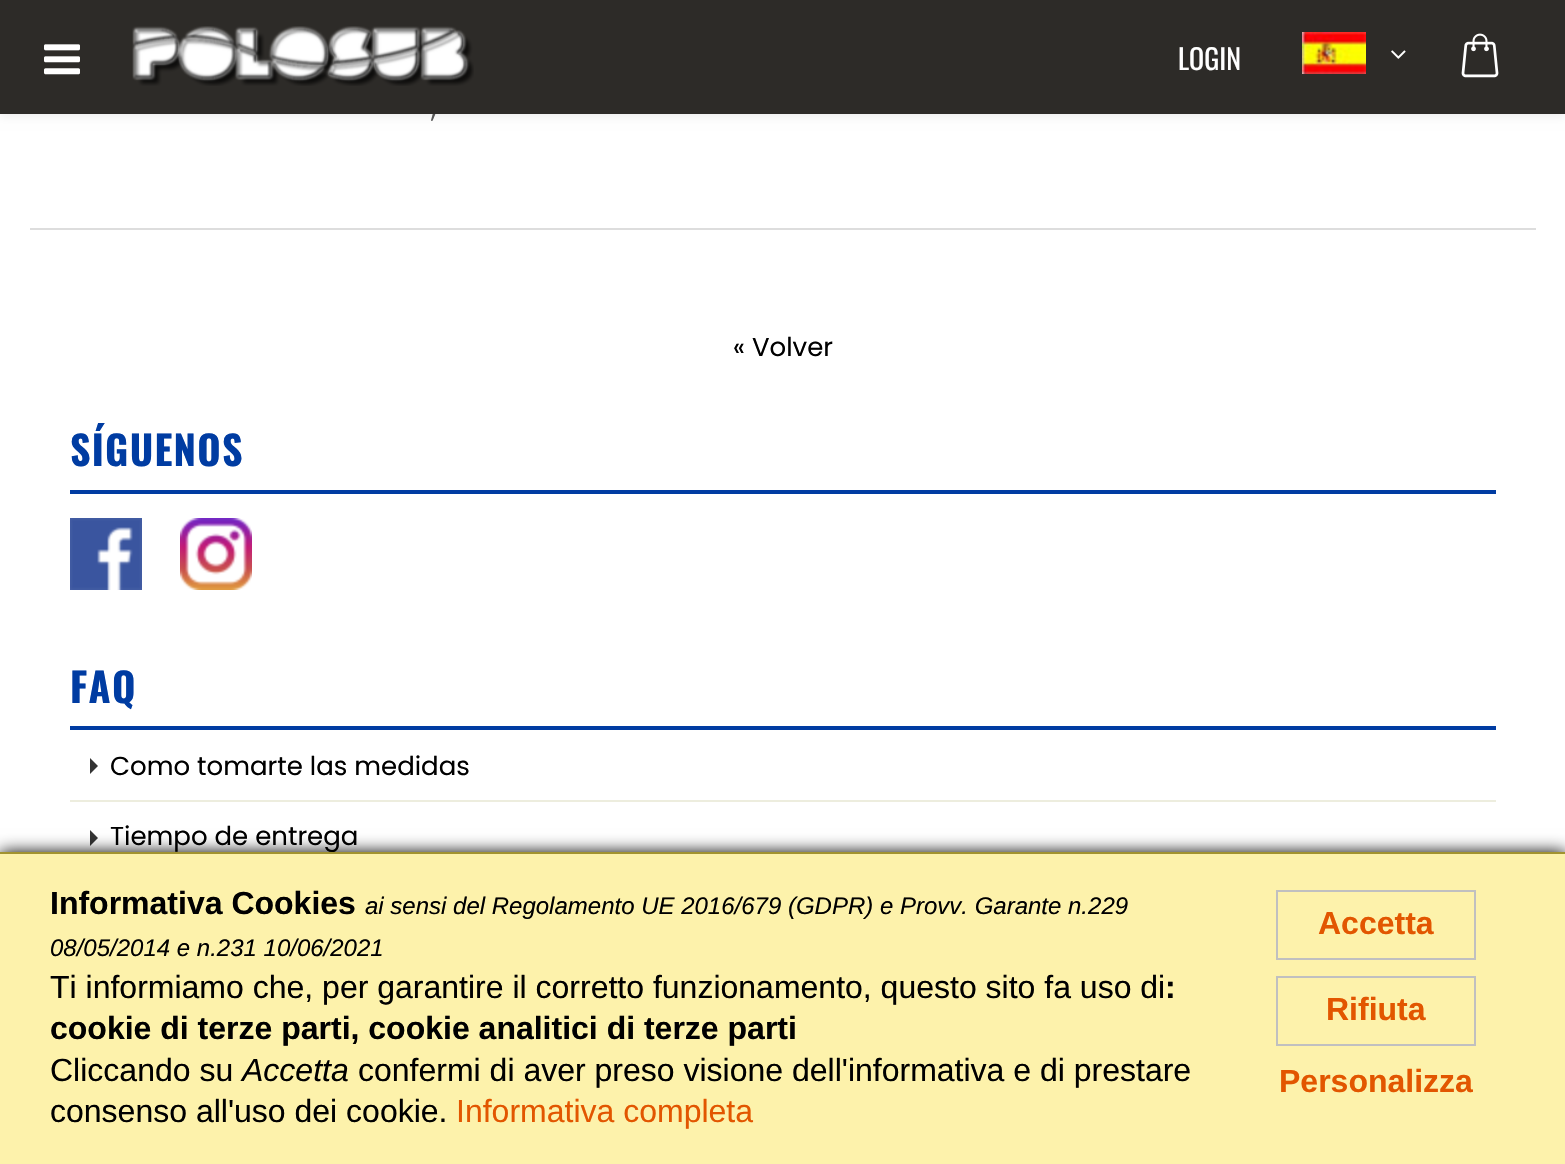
void draw(SkCanvas* canvas) {
    SkPaint paint;
    paint.setAntiAlias(true);
    auto face = [&](const char* family, int weight, float size, bool italic = false) {
        SkFontStyle style(weight, SkFontStyle::kNormal_Width,
            italic ? SkFontStyle::kItalic_Slant : SkFontStyle::kUpright_Slant);
        SkFont result(fontMgr->matchFamilyStyle(family, style), size);
        result.setSubpixel(true);
        return result;
    };
    auto write = [&](const char* s, float x, float y, const SkFont& font, SkColor color) {
        SkPaint ink(SkColor4f::FromColor(color));
        ink.setAntiAlias(true);
        canvas->drawString(s, x, y, font, ink);
    };
    auto writeSpaced = [&](const char* s, float x, float y, const SkFont& font, const SkPaint& ink, float letter, float word) {
        std::vector<SkGlyphID> glyphs(font.countText(s, strlen(s), SkTextEncoding::kUTF8));
        std::vector<float> xs(glyphs.size());
        font.textToGlyphs(s, strlen(s), SkTextEncoding::kUTF8, glyphs);
        font.getXPos(glyphs, xs, x);
        float extra = 0;
        for (size_t i = 0; i < glyphs.size(); i++) {
            xs[i] += extra;
            extra += letter + word * (glyphs[i] == font.unicharToGlyph(' '));
        }
        canvas->drawTextBlob(SkTextBlob::MakeFromPosHGlyphs(glyphs, xs, y, font), 0, 0, ink);
    };
    auto block = [&](float x, float y, float w, float h, SkColor color) {
        SkPaint ink(SkColor4f::FromColor(color));
        ink.setAntiAlias(true);
        canvas->drawRect(SkRect::MakeXYWH(x, y, w, h), ink);
    };
    auto paste = [&](const char* path, float x, float y, float w, float h) {
        auto image = SkImages::DeferredFromEncodedData(SkData::MakeFromFileName(path));
        canvas->drawImageRect(image, SkRect::MakeXYWH(x, y, w, h), SkSamplingOptions());
    };
    canvas->clear(SK_ColorWHITE);
    paint.setColor(SkColorSetARGB(20, 0, 0, 0));
    paint.setMaskFilter(SkMaskFilter::MakeBlur(kNormal_SkBlurStyle, 5));
    canvas->drawRect(SkRect::MakeXYWH(0, 2, 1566, 114), paint);
    paint.setMaskFilter(nullptr);
    auto kFont1 = face("Poppins", 400, 26);
    write(",", 431, 117, kFont1, SkColorSetRGB(85, 85, 85));
    block(0, 0, 1565, 114, SkColorSetRGB(45, 43, 40));
    paste("pic1.png", 44, 44, 36, 31);
    paste("pic2.png", 132, 26, 342, 60);
    auto kFont2 = face("Oswald", 400, 28);
    write("LOGIN", 1178, 70, kFont2, SK_ColorWHITE);
    paste("pic3.png", 1302, 32, 64, 42);
    paste("pic4.png", 1391, 50, 15, 9);
    paste("pic5.png", 1461, 33, 38, 45);
    block(30, 228, 1506, 2, SkColorSetRGB(221, 221, 221));
    write("« Volver", 733, 356, kFont1, SK_ColorBLACK);
    block(70, 490, 1426, 4, SkColorSetRGB(0, 60, 162));
    auto kFont3 = face("Oswald", 700, 40);
    paint.setColor(SkColorSetRGB(0, 60, 162));
    writeSpaced("SÍGUENOS", 70, 466, kFont3, paint, 1.25f, 0);
    paste("pic6.png", 70, 518, 72, 72);
    paste("pic7.png", 180, 518, 72, 72);
    block(70, 726, 1426, 4, SkColorSetRGB(0, 60, 162));
    writeSpaced("FAQ", 70, 703, kFont3, paint, 1.25f, 0);
    block(70, 800, 1426, 2, SkColorSetRGB(237, 237, 222));
    paint.setColor(SkColorSetRGB(51, 51, 51));
    canvas->drawPath(SkPathBuilder().moveTo(90, 774).lineTo(90, 758).lineTo(98, 766).close().detach(), paint);
    write("Como tomarte las medidas", 110, 775, kFont1, SK_ColorBLACK);
    canvas->drawPath(SkPathBuilder().moveTo(90, 846).lineTo(90, 830).lineTo(98, 838).close().detach(), paint);
    write("Tiempo de entrega", 110, 845, kFont1, SK_ColorBLACK);
    paint.setColor(SK_ColorBLACK);
    paint.setMaskFilter(SkMaskFilter::MakeBlur(kNormal_SkBlurStyle, 8));
    canvas->drawRect(SkRect::MakeXYWH(0, 852, 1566, 312), paint);
    paint.setMaskFilter(nullptr);
    block(0, 854, 1565, 310, SkColorSetRGB(253, 242, 171));
    block(0, 852, 1565, 2, SkColorSetRGB(162, 147, 48));
    auto kFont4 = face("Liberation Sans", 700, 32);
    write("Informativa Cookies", 50, 914, kFont4, SK_ColorBLACK);
    auto kFont5 = face("Liberation Sans", 400, 24, true);
    write("ai sensi del Regolamento UE 2016/679 (GDPR) e Provv. Garante n.229", 365, 914, kFont5, SK_ColorBLACK);
    write("08/05/2014 e n.231 10/06/2021", 50, 956, kFont5, SK_ColorBLACK);
    auto kFont6 = face("Liberation Sans", 400, 32);
    write("Ti informiamo che, per garantire il corretto funzionamento, questo sito fa uso di", 50, 998, kFont6, SK_ColorBLACK);
    write(":", 1165, 998, kFont4, SK_ColorBLACK);
    write("cookie di terze parti, cookie analitici di terze parti", 50, 1039, kFont4, SK_ColorBLACK);
    write("Cliccando su", 50, 1081, kFont6, SK_ColorBLACK);
    auto kFont7 = face("Liberation Sans", 400, 32, true);
    write("Accetta", 242, 1081, kFont7, SK_ColorBLACK);
    write("confermi di aver preso visione dell'informativa e di prestare", 358, 1081, kFont6, SK_ColorBLACK);
    write("consenso all'uso dei cookie.", 50, 1122, kFont6, SK_ColorBLACK);
    write("Informativa completa", 456, 1122, kFont6, SkColorSetRGB(226, 86, 0));
    paint.setStyle(SkPaint::kStroke_Style);
    paint.setStrokeWidth(2);
    paint.setColor(SkColorSetRGB(192, 192, 192));
    canvas->drawRect(SkRect::MakeXYWH(1277, 891, 198, 68), paint);
    write("Accetta", 1318, 934, kFont4, SkColorSetRGB(226, 86, 0));
    canvas->drawRect(SkRect::MakeXYWH(1277, 977, 198, 68), paint);
    write("Rifiuta", 1326, 1020, kFont4, SkColorSetRGB(226, 86, 0));
    write("Personalizza", 1279, 1092, kFont4, SkColorSetRGB(226, 86, 0));
}
